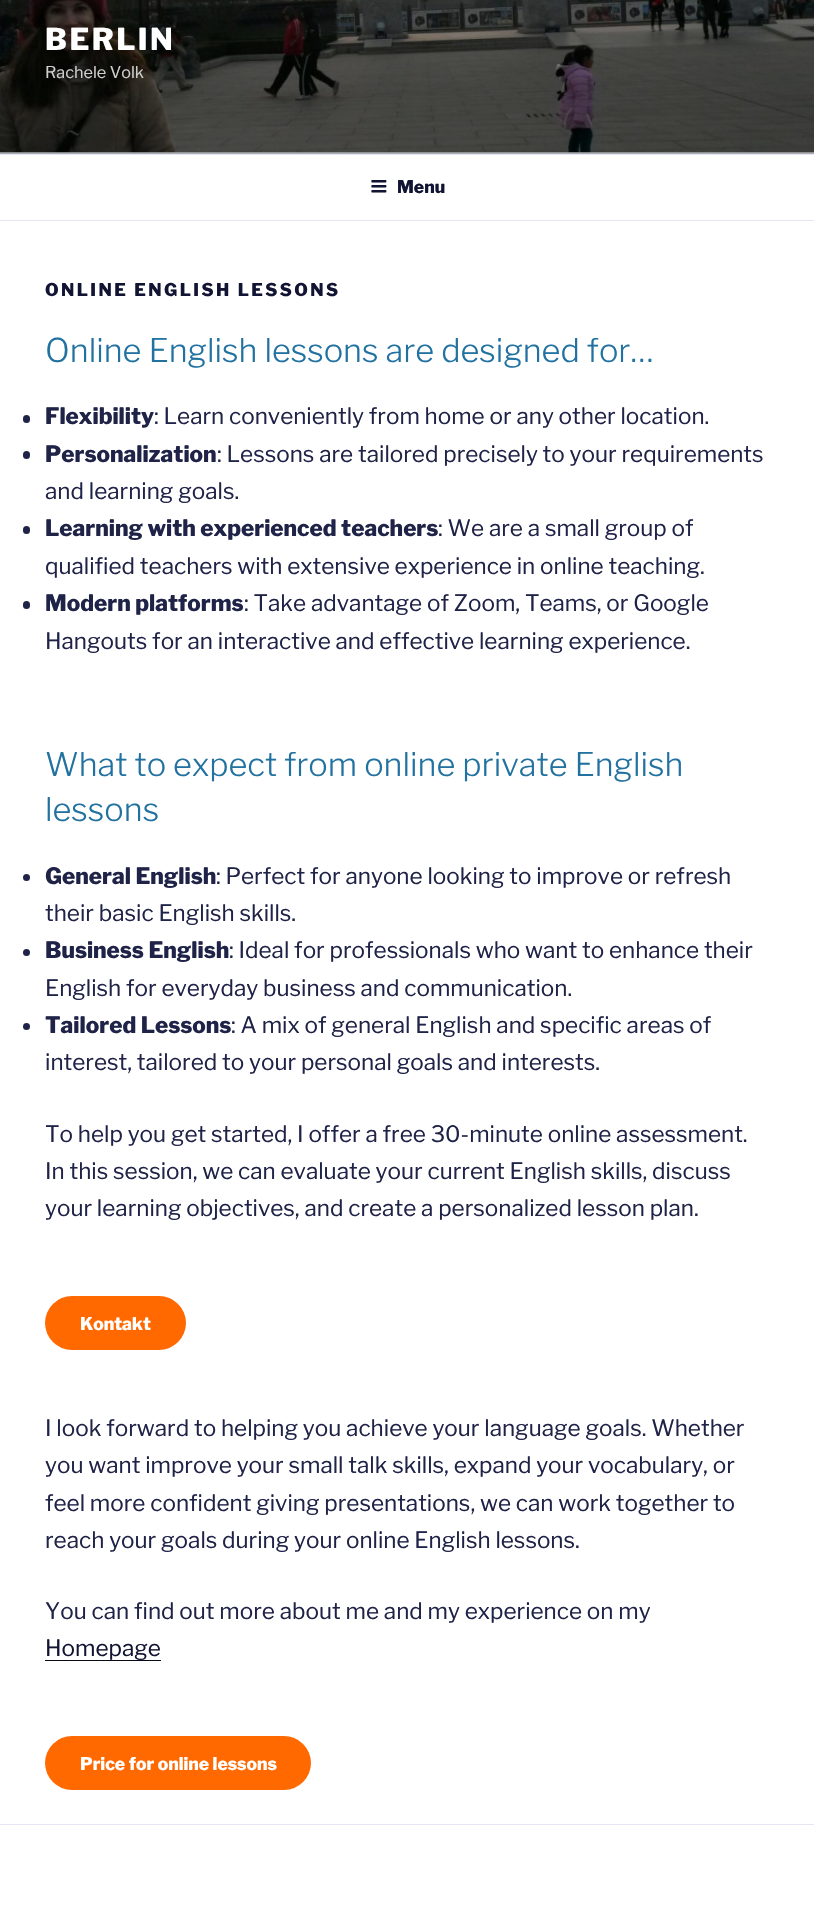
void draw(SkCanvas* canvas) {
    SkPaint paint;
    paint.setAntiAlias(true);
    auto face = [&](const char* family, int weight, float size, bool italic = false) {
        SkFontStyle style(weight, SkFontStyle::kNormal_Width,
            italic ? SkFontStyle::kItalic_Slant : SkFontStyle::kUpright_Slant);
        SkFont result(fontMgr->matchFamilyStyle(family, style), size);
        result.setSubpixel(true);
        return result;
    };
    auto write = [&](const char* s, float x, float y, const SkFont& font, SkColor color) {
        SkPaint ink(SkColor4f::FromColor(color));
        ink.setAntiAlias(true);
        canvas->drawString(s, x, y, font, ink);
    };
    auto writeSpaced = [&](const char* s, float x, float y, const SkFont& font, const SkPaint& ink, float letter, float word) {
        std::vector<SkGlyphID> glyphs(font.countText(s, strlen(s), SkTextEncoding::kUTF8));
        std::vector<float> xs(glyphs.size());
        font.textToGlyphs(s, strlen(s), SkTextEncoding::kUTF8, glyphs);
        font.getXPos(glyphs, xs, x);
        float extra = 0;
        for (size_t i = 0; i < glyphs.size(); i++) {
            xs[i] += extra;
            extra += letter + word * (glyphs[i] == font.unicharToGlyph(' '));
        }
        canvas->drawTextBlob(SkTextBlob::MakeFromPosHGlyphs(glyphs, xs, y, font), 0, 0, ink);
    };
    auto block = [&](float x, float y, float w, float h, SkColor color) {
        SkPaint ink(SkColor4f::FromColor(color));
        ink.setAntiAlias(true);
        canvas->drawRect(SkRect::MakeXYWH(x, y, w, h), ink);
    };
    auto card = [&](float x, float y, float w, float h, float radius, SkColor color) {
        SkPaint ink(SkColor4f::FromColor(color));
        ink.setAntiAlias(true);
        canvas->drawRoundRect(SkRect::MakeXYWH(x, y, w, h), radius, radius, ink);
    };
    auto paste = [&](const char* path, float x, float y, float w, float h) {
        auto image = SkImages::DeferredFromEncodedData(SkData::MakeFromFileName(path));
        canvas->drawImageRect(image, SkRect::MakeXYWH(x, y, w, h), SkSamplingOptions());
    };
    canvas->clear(SK_ColorWHITE);
    block(0, 152, 814, 2, SkColorSetRGB(247, 248, 252));
    paste("pic1.png", 0, 0, 814, 153);
    {
        const SkColor colors[] = {SkColorSetARGB(0, 0, 0, 0), SkColorSetARGB(77, 0, 0, 0), SkColorSetARGB(77, 0, 0, 0)};
        const float stops[] = {0, 0.75f, 1};
        const SkPoint ends[] = {{408, -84}, {408, 154}};
        paint.setShader(SkGradientShader::MakeLinear(ends, colors, stops, 3, SkTileMode::kClamp));
        paint.setAlpha(255);
    }
    canvas->drawRect(SkRect::MakeXYWH(0, 0, 814, 154), paint);
    auto kFont1 = face("Libre Franklin", 100, 30);
    paint.setShader(nullptr);
    paint.setColor(SK_ColorWHITE);
    writeSpaced("BERLIN", 45, 50, kFont1, paint, 2.5f, 0);
    auto kFont2 = face("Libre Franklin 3", 100, 16.25f);
    write("Rachele Volk", 45, 78, kFont2, SkColorSetRGB(208, 208, 207));
    block(0, 154, 814, 1, SkColorSetRGB(228, 230, 246));
    block(0, 220, 814, 1, SkColorSetRGB(228, 230, 246));
    paste("pic2.png", 371, 180, 16, 13);
    auto kFont3 = face("Libre Franklin", 100, 17.5f);
    write("Menu", 397, 193, kFont3, SkColorSetRGB(17, 20, 50));
    paint.setColor(SkColorSetRGB(17, 20, 50));
    writeSpaced("ONLINE ENGLISH LESSONS", 45, 296, kFont3, paint, 2.45f, 0);
    auto kFont4 = face("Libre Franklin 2", 100, 32.5f);
    write("Online English lessons are designed for…", 45, 362, kFont4, SkColorSetRGB(34, 114, 161));
    card(23, 415, 7, 8, 3.5f, SkColorSetRGB(31, 35, 71));
    auto kFont5 = face("Libre Franklin", 100, 22.5f);
    write("Flexibility", 45, 424, kFont5, SkColorSetRGB(31, 35, 71));
    auto kFont6 = face("Libre Franklin 3", 100, 22.5f);
    write(": Learn conveniently from home or any other location.", 154, 424, kFont6, SkColorSetRGB(31, 35, 71));
    card(23, 451, 7, 8, 3.5f, SkColorSetRGB(31, 35, 71));
    write("Personalization", 45, 462, kFont5, SkColorSetRGB(31, 35, 71));
    write(": Lessons are tailored precisely to your requirements", 217, 462, kFont6, SkColorSetRGB(31, 35, 71));
    write("and learning goals.", 45, 499, kFont6, SkColorSetRGB(31, 35, 71));
    card(23, 526, 7, 8, 3.5f, SkColorSetRGB(31, 35, 71));
    write("Learning with experienced teachers", 45, 536, kFont5, SkColorSetRGB(31, 35, 71));
    write(": We are a small group of", 438, 536, kFont6, SkColorSetRGB(31, 35, 71));
    write("qualified teachers with extensive experience in online teaching.", 45, 574, kFont6, SkColorSetRGB(31, 35, 71));
    card(23, 601, 7, 8, 3.5f, SkColorSetRGB(31, 35, 71));
    write("Modern platforms", 45, 611, kFont5, SkColorSetRGB(31, 35, 71));
    write(": Take advantage of Zoom, Teams, or Google", 244, 611, kFont6, SkColorSetRGB(31, 35, 71));
    write("Hangouts for an interactive and effective learning experience.", 45, 649, kFont6, SkColorSetRGB(31, 35, 71));
    write("What to expect from online private English", 45, 776, kFont4, SkColorSetRGB(34, 114, 161));
    write("lessons", 45, 821, kFont4, SkColorSetRGB(34, 114, 161));
    paint.setColor(SkColorSetRGB(31, 35, 71));
    canvas->drawCircle(26.5f, 877.5f, 3.5f, paint);
    write("General English", 45, 884, kFont5, SkColorSetRGB(31, 35, 71));
    write(": Perfect for anyone looking to improve or refresh", 216, 884, kFont6, SkColorSetRGB(31, 35, 71));
    write("their basic English skills.", 45, 921, kFont6, SkColorSetRGB(31, 35, 71));
    canvas->drawCircle(26.5f, 952.5f, 3.5f, paint);
    write("Business English", 45, 958, kFont5, SkColorSetRGB(31, 35, 71));
    write(": Ideal for professionals who want to enhance their", 229, 958, kFont6, SkColorSetRGB(31, 35, 71));
    write("English for everyday business and communication.", 45, 996, kFont6, SkColorSetRGB(31, 35, 71));
    canvas->drawCircle(26.5f, 1026.5f, 3.5f, paint);
    write("Tailored Lessons", 45, 1033, kFont5, SkColorSetRGB(31, 35, 71));
    write(": A mix of general English and specific areas of", 231, 1033, kFont6, SkColorSetRGB(31, 35, 71));
    write("interest, tailored to your personal goals and interests.", 45, 1070, kFont6, SkColorSetRGB(31, 35, 71));
    write("To help you get started, I offer a free 30-minute online assessment.", 45, 1142, kFont6, SkColorSetRGB(31, 35, 71));
    write("In this session, we can evaluate your current English skills, discuss", 45, 1179, kFont6, SkColorSetRGB(31, 35, 71));
    write("your learning objectives, and create a personalized lesson plan.", 45, 1216, kFont6, SkColorSetRGB(31, 35, 71));
    card(45, 1296, 141, 54, 27, SkColorSetRGB(255, 105, 0));
    write("Kontakt", 80, 1330, kFont3, SK_ColorWHITE);
    write("I look forward to helping you achieve your language goals. Whether", 45, 1436, kFont6, SkColorSetRGB(31, 35, 71));
    write("you want improve your small talk skills, expand your vocabulary, or", 45, 1473, kFont6, SkColorSetRGB(31, 35, 71));
    write("feel more confident giving presentations, we can work together to", 45, 1511, kFont6, SkColorSetRGB(31, 35, 71));
    write("reach your goals during your online English lessons.", 45, 1548, kFont6, SkColorSetRGB(31, 35, 71));
    write("You can find out more about me and my experience on my", 45, 1619, kFont6, SkColorSetRGB(31, 35, 71));
    write("Homepage", 45, 1656, kFont6, SkColorSetRGB(17, 20, 50));
    block(45, 1660, 116, 1, SkColorSetRGB(8, 9, 23));
    card(45, 1736, 266, 54, 27, SkColorSetRGB(255, 105, 0));
    write("Price for online lessons", 80, 1770, kFont3, SK_ColorWHITE);
    block(0, 1824, 814, 1, SkColorSetRGB(228, 230, 246));
}
